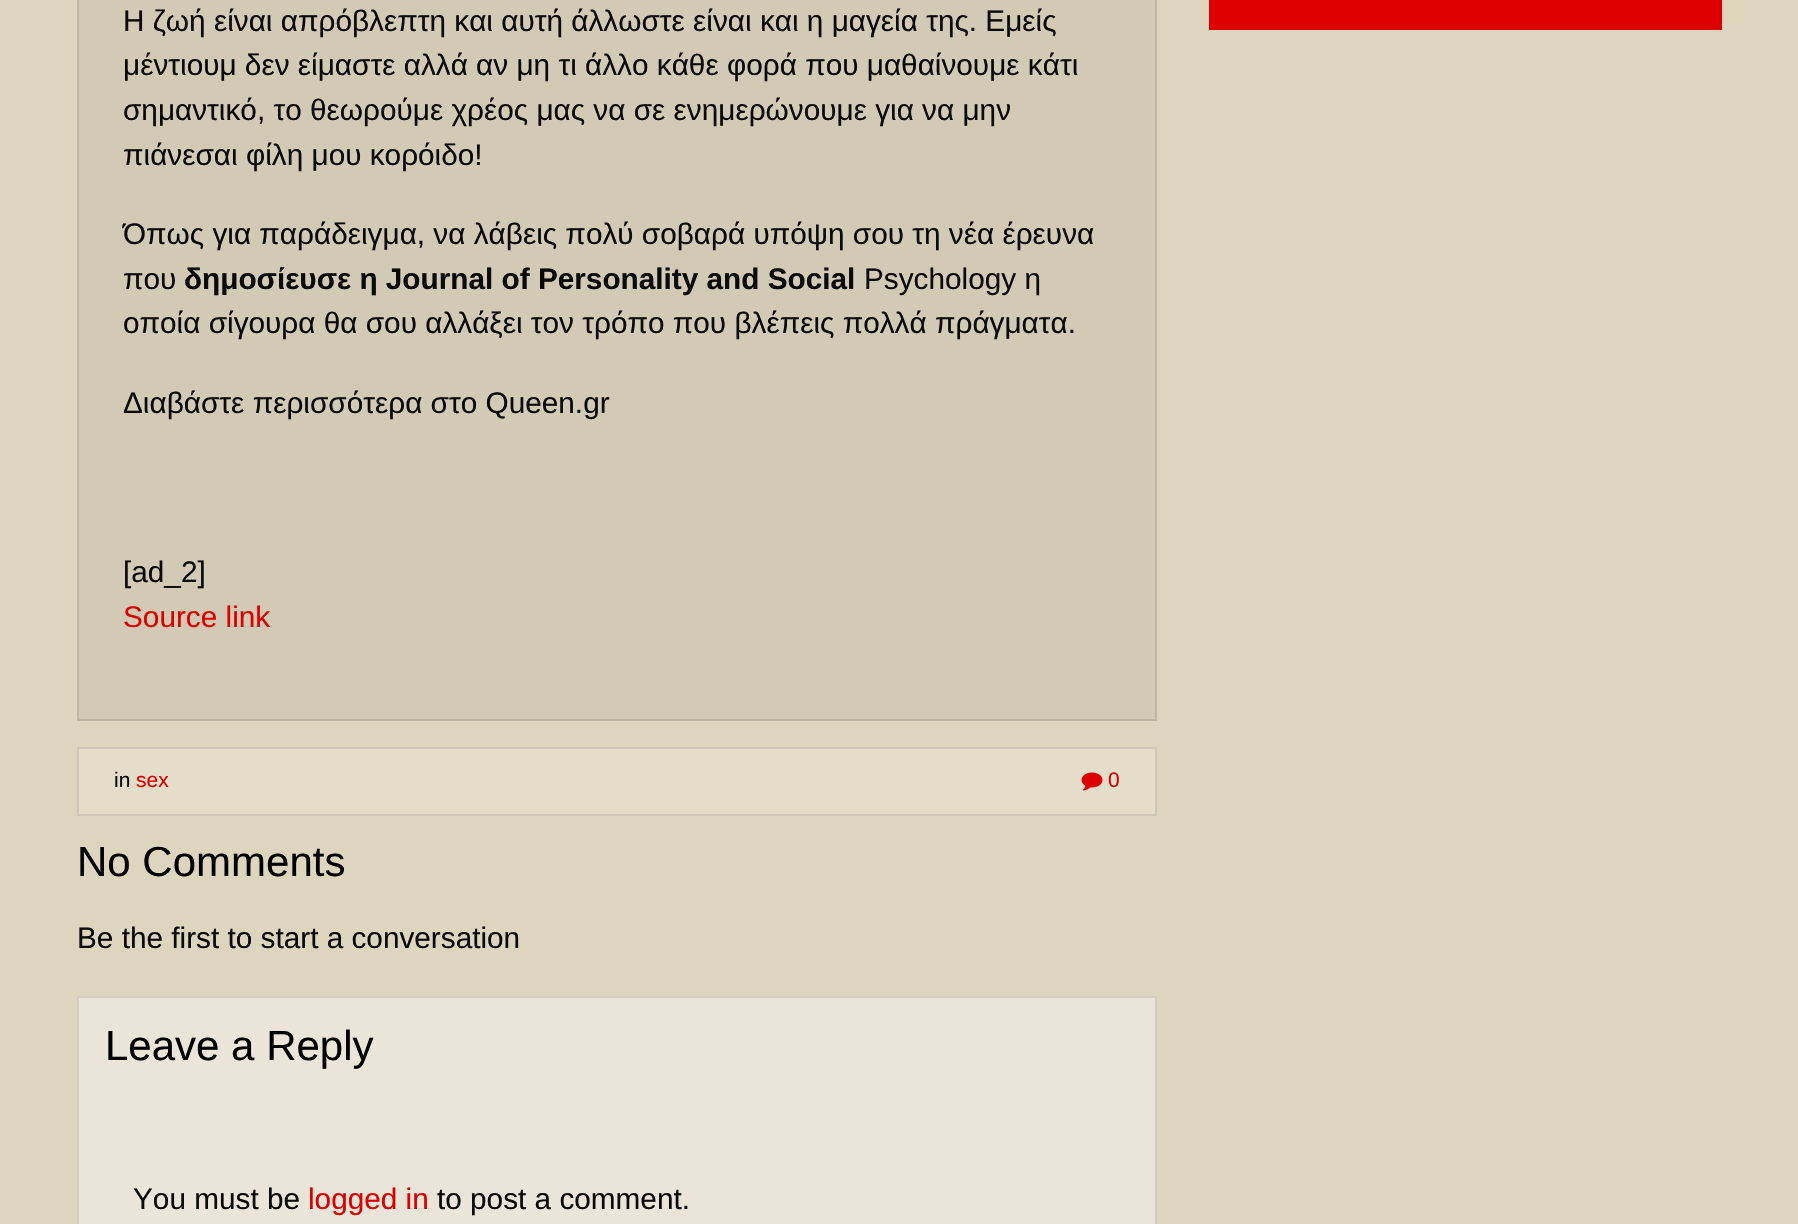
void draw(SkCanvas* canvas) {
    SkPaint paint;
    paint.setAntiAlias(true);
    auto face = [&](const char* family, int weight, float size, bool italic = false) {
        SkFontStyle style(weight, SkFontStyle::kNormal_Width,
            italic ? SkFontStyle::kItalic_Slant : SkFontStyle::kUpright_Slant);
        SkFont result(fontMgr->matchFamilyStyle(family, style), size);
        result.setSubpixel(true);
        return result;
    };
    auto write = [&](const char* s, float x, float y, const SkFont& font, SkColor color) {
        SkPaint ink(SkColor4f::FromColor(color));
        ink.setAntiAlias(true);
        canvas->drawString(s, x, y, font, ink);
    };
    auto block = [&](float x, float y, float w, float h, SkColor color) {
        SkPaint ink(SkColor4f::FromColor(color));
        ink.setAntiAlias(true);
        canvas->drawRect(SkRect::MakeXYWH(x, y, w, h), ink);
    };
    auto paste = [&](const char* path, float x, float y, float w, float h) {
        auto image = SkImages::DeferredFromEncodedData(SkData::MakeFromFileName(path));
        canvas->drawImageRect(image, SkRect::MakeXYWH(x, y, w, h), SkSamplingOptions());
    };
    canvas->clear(SkColorSetRGB(221, 213, 190));
    paint.setColor(SkColorSetRGB(211, 202, 182));
    canvas->drawRect(SkRect::MakeXYWH(78, -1, 1078, 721), paint);
    paint.setStyle(SkPaint::kStroke_Style);
    paint.setStrokeWidth(2);
    paint.setColor(SkColorSetRGB(190, 182, 164));
    canvas->drawRect(SkRect::MakeXYWH(78, -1, 1078, 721), paint);
    auto kFont1 = face("Liberation Sans", 400, 29.75f);
    write("Η ζωή είναι απρόβλεπτη και αυτή άλλωστε είναι και η μαγεία της. Εμείς", 123, 31, kFont1, SkColorSetRGB(10, 10, 10));
    write("μέντιουμ δεν είμαστε αλλά αν μη τι άλλο κάθε φορά που μαθαίνουμε κάτι", 123, 75, kFont1, SkColorSetRGB(10, 10, 10));
    write("σημαντικό, το θεωρούμε χρέος μας να σε ενημερώνουμε για να μην", 123, 120, kFont1, SkColorSetRGB(10, 10, 10));
    write("πιάνεσαι φίλη μου κορόιδο!", 123, 165, kFont1, SkColorSetRGB(10, 10, 10));
    write("Όπως για παράδειγμα, να λάβεις πολύ σοβαρά υπόψη σου τη νέα έρευνα", 123, 244, kFont1, SkColorSetRGB(10, 10, 10));
    write("που", 123, 289, kFont1, SkColorSetRGB(10, 10, 10));
    auto kFont2 = face("Liberation Sans", 700, 29.75f);
    write("δημοσίευσε η Journal of Personality and Social", 184, 289, kFont2, SkColorSetRGB(10, 10, 10));
    write("Psychology η", 864, 289, kFont1, SkColorSetRGB(10, 10, 10));
    write("οποία σίγουρα θα σου αλλάξει τον τρόπο που βλέπεις πολλά πράγματα.", 123, 333, kFont1, SkColorSetRGB(10, 10, 10));
    write("Διαβάστε περισσότερα στο Queen.gr", 123, 413, kFont1, SkColorSetRGB(10, 10, 10));
    write("[ad_2]", 123, 582, kFont1, SkColorSetRGB(10, 10, 10));
    write("Source link", 123, 627, kFont1, SkColorSetRGB(221, 0, 0));
    paint.setStyle(SkPaint::kFill_Style);
    paint.setColor(SkColorSetRGB(227, 221, 202));
    canvas->drawRect(SkRect::MakeXYWH(78, 748, 1078, 67), paint);
    paint.setStyle(SkPaint::kStroke_Style);
    paint.setColor(SkColorSetRGB(204, 199, 182));
    canvas->drawRect(SkRect::MakeXYWH(78, 748, 1078, 67), paint);
    auto kFont3 = face("Liberation Sans", 400, 21);
    write("in", 114, 787, kFont3, SkColorSetRGB(10, 10, 10));
    write("sex", 136, 787, kFont3, SkColorSetRGB(221, 0, 0));
    paste("pic1.png", 1081, 772, 22, 19);
    write("0", 1108, 787, kFont3, SkColorSetRGB(221, 0, 0));
    auto kFont4 = face("Liberation Sans", 400, 42);
    write("No Comments", 77, 876, kFont4, SK_ColorBLACK);
    write("Be the first to start a conversation", 77, 948, kFont1, SkColorSetRGB(10, 10, 10));
    paint.setStyle(SkPaint::kFill_Style);
    paint.setColor(SkColorSetRGB(234, 229, 216));
    canvas->drawRect(SkRect::MakeXYWH(78, 997, 1078, 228), paint);
    paint.setStyle(SkPaint::kStroke_Style);
    paint.setColor(SkColorSetRGB(211, 206, 194));
    canvas->drawRect(SkRect::MakeXYWH(78, 997, 1078, 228), paint);
    write("Leave a Reply", 105, 1060, kFont4, SK_ColorBLACK);
    write("You must be", 133, 1209, kFont1, SkColorSetRGB(10, 10, 10));
    write("logged in", 308, 1209, kFont1, SkColorSetRGB(221, 0, 0));
    write("to post a comment.", 437, 1209, kFont1, SkColorSetRGB(10, 10, 10));
    block(1209, 0, 513, 30, SkColorSetRGB(221, 0, 0));
}
